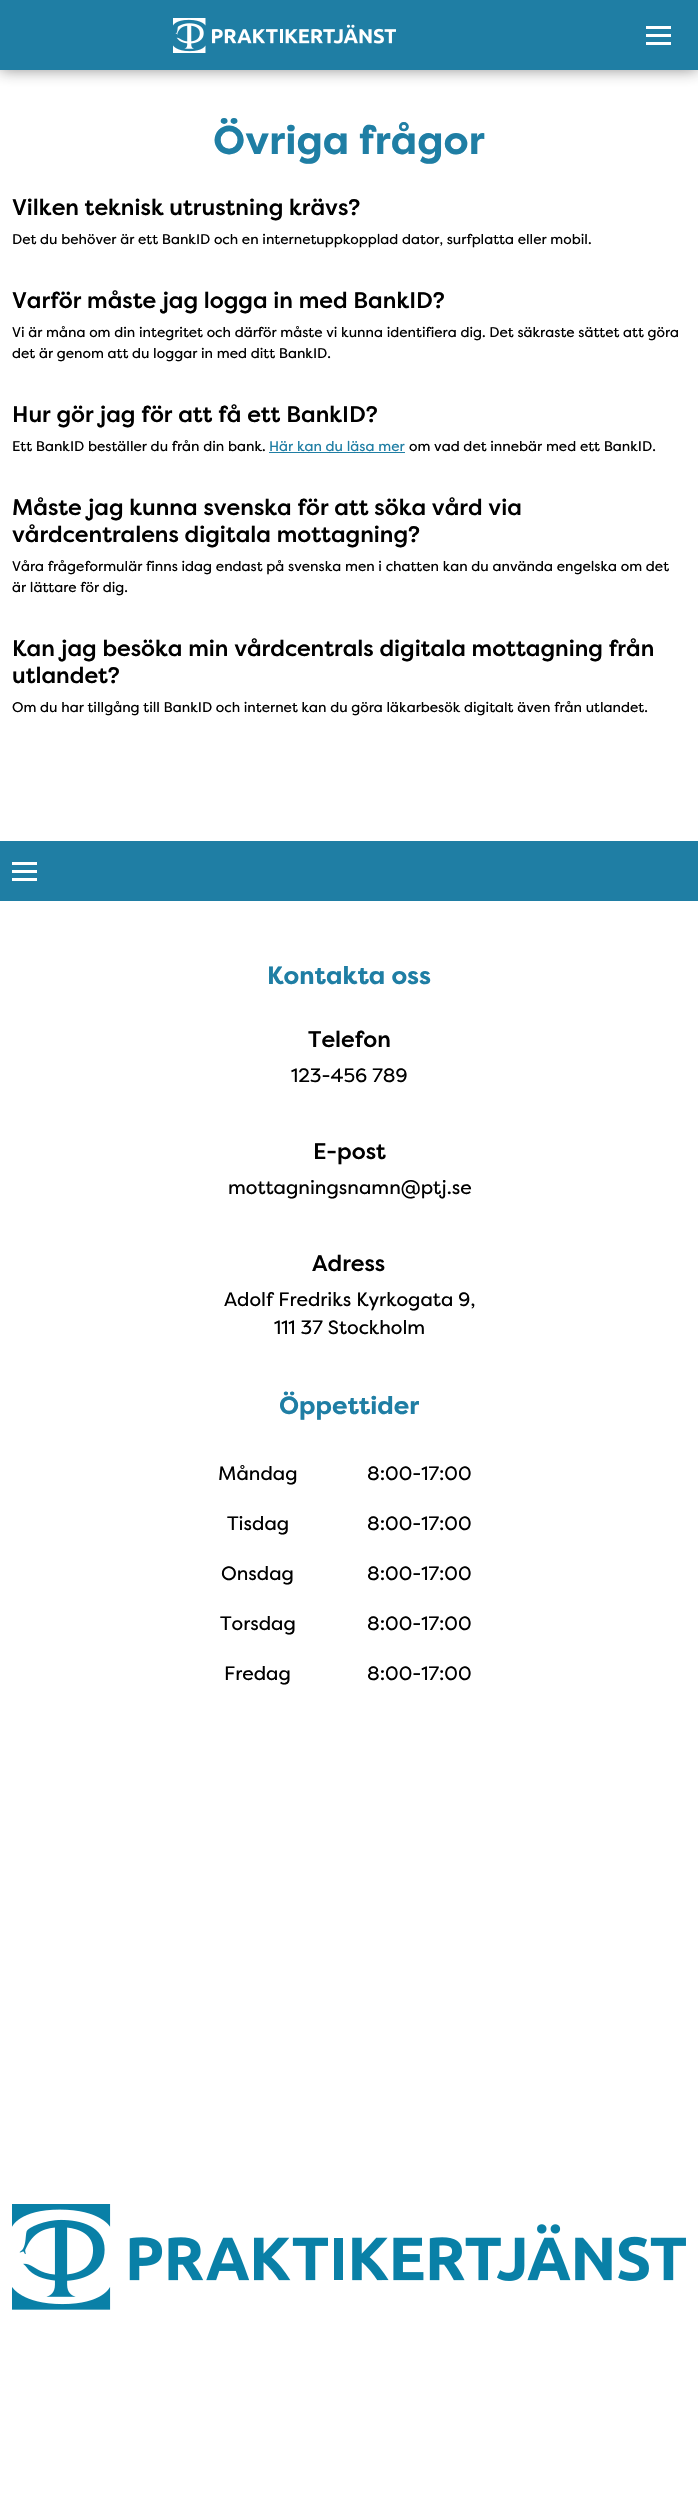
void draw(SkCanvas* canvas) {
    SkPaint paint;
    paint.setAntiAlias(true);
    auto face = [&](const char* family, int weight, float size, bool italic = false) {
        SkFontStyle style(weight, SkFontStyle::kNormal_Width,
            italic ? SkFontStyle::kItalic_Slant : SkFontStyle::kUpright_Slant);
        SkFont result(fontMgr->matchFamilyStyle(family, style), size);
        result.setSubpixel(true);
        return result;
    };
    auto write = [&](const char* s, float x, float y, const SkFont& font, SkColor color) {
        SkPaint ink(SkColor4f::FromColor(color));
        ink.setAntiAlias(true);
        canvas->drawString(s, x, y, font, ink);
    };
    auto block = [&](float x, float y, float w, float h, SkColor color) {
        SkPaint ink(SkColor4f::FromColor(color));
        ink.setAntiAlias(true);
        canvas->drawRect(SkRect::MakeXYWH(x, y, w, h), ink);
    };
    auto paste = [&](const char* path, float x, float y, float w, float h) {
        auto image = SkImages::DeferredFromEncodedData(SkData::MakeFromFileName(path));
        canvas->drawImageRect(image, SkRect::MakeXYWH(x, y, w, h), SkSamplingOptions());
    };
    canvas->clear(SK_ColorWHITE);
    paint.setColor(SkColorSetARGB(128, 32, 32, 32));
    paint.setMaskFilter(SkMaskFilter::MakeBlur(kNormal_SkBlurStyle, 7.5f));
    canvas->drawRect(SkRect::MakeXYWH(0, 0, 698, 70), paint);
    paint.setMaskFilter(nullptr);
    block(0, 0, 698, 70, SkColorSetRGB(31, 126, 164));
    paste("pic1.png", 173, 18, 223, 35);
    block(646, 26, 25, 3, SK_ColorWHITE);
    block(646, 34, 25, 3, SK_ColorWHITE);
    block(646, 42, 25, 3, SK_ColorWHITE);
    auto kFont1 = face("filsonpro", 700, 40);
    write("Övriga frågor", 213, 154, kFont1, SkColorSetRGB(31, 126, 164));
    auto kFont2 = face("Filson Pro", 600, 22.5f);
    write("Vilken teknisk utrustning krävs?", 12, 215, kFont2, SK_ColorBLACK);
    auto kFont3 = face("filsonpro", 500, 14);
    write("Det du behöver är ett BankID och en internetuppkopplad dator, surfplatta eller mobil.", 12, 244, kFont3, SK_ColorBLACK);
    write("Varför måste jag logga in med BankID?", 12, 308, kFont2, SK_ColorBLACK);
    write("Vi är måna om din integritet och därför måste vi kunna identifiera dig. Det säkraste sättet att göra", 12, 337, kFont3, SK_ColorBLACK);
    write("det är genom att du loggar in med ditt BankID.", 12, 358, kFont3, SK_ColorBLACK);
    write("Hur gör jag för att få ett BankID?", 12, 422, kFont2, SK_ColorBLACK);
    write("Ett BankID beställer du från din bank.", 12, 451, kFont3, SK_ColorBLACK);
    write("Här kan du läsa mer", 269, 451, kFont3, SkColorSetRGB(31, 126, 164));
    block(269, 452, 136, 1, SkColorSetRGB(31, 126, 164));
    write("om vad det innebär med ett BankID.", 409, 451, kFont3, SK_ColorBLACK);
    write("Måste jag kunna svenska för att söka vård via", 12, 515, kFont2, SK_ColorBLACK);
    write("vårdcentralens digitala mottagning?", 12, 542, kFont2, SK_ColorBLACK);
    write("Våra frågeformulär finns idag endast på svenska men i chatten kan du använda engelska om det", 12, 571, kFont3, SK_ColorBLACK);
    write("är lättare för dig.", 12, 592, kFont3, SK_ColorBLACK);
    write("Kan jag besöka min vårdcentrals digitala mottagning från", 12, 656, kFont2, SK_ColorBLACK);
    write("utlandet?", 12, 683, kFont2, SK_ColorBLACK);
    write("Om du har tillgång till BankID och internet kan du göra läkarbesök digitalt även från utlandet.", 12, 712, kFont3, SK_ColorBLACK);
    block(0, 841, 698, 60, SkColorSetRGB(31, 126, 164));
    block(12, 862, 25, 3, SK_ColorWHITE);
    block(12, 870, 25, 3, SK_ColorWHITE);
    block(12, 878, 25, 3, SK_ColorWHITE);
    auto kFont4 = face("filsonpro", 700, 25);
    write("Kontakta oss", 267, 984, kFont4, SkColorSetRGB(31, 126, 164));
    write("Telefon", 308, 1047, kFont2, SK_ColorBLACK);
    auto kFont5 = face("filsonpro", 500, 19.25f);
    write("123-456 789", 291, 1082, kFont5, SK_ColorBLACK);
    write("E-post", 313, 1159, kFont2, SK_ColorBLACK);
    write("mottagningsnamn@ptj.se", 228, 1194, kFont5, SK_ColorBLACK);
    write("Adress", 312, 1271, kFont2, SK_ColorBLACK);
    write("Adolf Fredriks Kyrkogata 9,", 224, 1306, kFont5, SK_ColorBLACK);
    write("111 37 Stockholm", 274, 1334, kFont5, SK_ColorBLACK);
    write("Öppettider", 279, 1414, kFont4, SkColorSetRGB(31, 126, 164));
    write("Måndag", 218, 1480, kFont5, SK_ColorBLACK);
    write("8:00-17:00", 367, 1480, kFont5, SK_ColorBLACK);
    write("Tisdag", 227, 1530, kFont5, SK_ColorBLACK);
    write("8:00-17:00", 367, 1530, kFont5, SK_ColorBLACK);
    write("Onsdag", 221, 1580, kFont5, SK_ColorBLACK);
    write("8:00-17:00", 367, 1580, kFont5, SK_ColorBLACK);
    write("Torsdag", 220, 1630, kFont5, SK_ColorBLACK);
    write("8:00-17:00", 367, 1630, kFont5, SK_ColorBLACK);
    write("Fredag", 224, 1680, kFont5, SK_ColorBLACK);
    write("8:00-17:00", 367, 1680, kFont5, SK_ColorBLACK);
    paste("pic2.png", 12, 2204, 674, 106);
}
